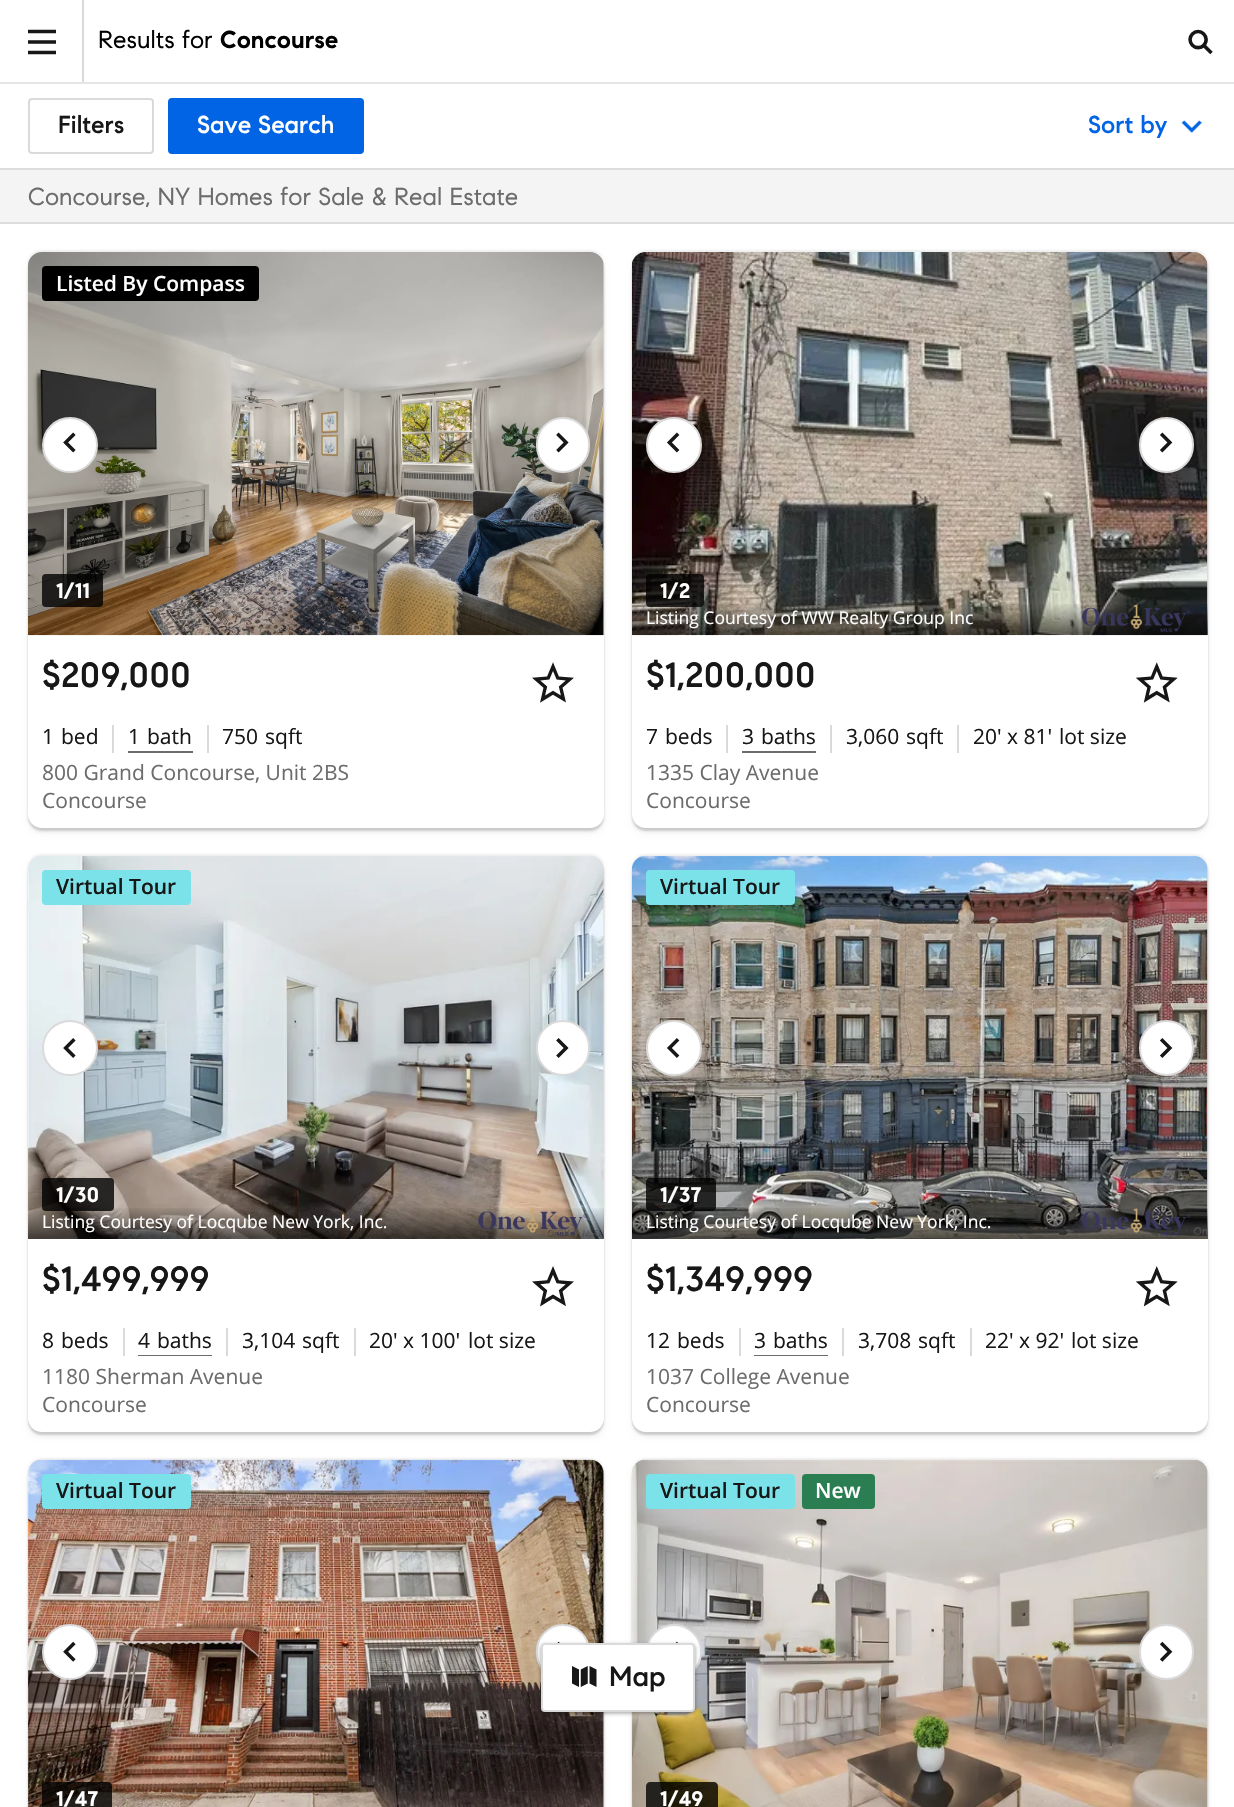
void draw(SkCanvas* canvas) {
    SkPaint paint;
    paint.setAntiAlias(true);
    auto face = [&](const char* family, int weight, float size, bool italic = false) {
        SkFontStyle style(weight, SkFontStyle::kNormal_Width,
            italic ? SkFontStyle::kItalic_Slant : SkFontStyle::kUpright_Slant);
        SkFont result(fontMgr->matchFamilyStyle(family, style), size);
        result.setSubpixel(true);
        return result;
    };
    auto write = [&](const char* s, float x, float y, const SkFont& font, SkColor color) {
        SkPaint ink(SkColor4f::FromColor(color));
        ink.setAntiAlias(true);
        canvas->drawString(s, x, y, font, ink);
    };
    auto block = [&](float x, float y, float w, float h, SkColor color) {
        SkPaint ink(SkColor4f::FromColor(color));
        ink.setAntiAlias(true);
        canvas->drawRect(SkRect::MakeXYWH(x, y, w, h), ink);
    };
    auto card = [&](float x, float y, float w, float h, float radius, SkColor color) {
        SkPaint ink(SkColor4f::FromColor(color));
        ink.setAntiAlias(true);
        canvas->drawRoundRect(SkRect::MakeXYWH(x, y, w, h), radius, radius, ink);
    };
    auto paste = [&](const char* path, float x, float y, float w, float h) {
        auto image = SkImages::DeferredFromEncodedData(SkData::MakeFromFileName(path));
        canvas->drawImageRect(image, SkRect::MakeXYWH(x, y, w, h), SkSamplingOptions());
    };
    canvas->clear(SK_ColorWHITE);
    block(0, 82, 1234, 2, SkColorSetRGB(230, 230, 230));
    block(82, 0, 2, 82, SkColorSetRGB(217, 217, 217));
    paste("pic1.png", 28, 29, 28, 26);
    auto kFont1 = face("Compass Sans", 400, 24.5f);
    write("Results for", 98, 48, kFont1, SK_ColorBLACK);
    auto kFont2 = face("Compass Sans", 700, 24.5f);
    write("Concourse", 220, 48, kFont2, SK_ColorBLACK);
    paste("pic2.png", 1188, 29, 25, 26);
    paint.setStyle(SkPaint::kStroke_Style);
    paint.setStrokeWidth(2);
    paint.setColor(SkColorSetRGB(218, 218, 218));
    canvas->drawRoundRect(SkRect::MakeXYWH(29, 99, 124, 54), 3, 3, paint);
    auto kFont3 = face("Compass Sans", 500, 24.5f);
    write("Filters", 58, 133, kFont3, SkColorSetRGB(23, 23, 23));
    paint.setStyle(SkPaint::kFill_Style);
    paint.setColor(SkColorSetRGB(0, 100, 229));
    canvas->drawRoundRect(SkRect::MakeXYWH(169, 99, 194, 54), 3, 3, paint);
    paint.setStyle(SkPaint::kStroke_Style);
    canvas->drawRoundRect(SkRect::MakeXYWH(169, 99, 194, 54), 3, 3, paint);
    write("Save Search", 197, 133, kFont3, SK_ColorWHITE);
    write("Sort by", 1088, 133, kFont3, SkColorSetRGB(0, 100, 229));
    paste("pic3.png", 1181, 120, 21, 13);
    block(0, 170, 1234, 52, SkColorSetRGB(244, 244, 244));
    block(0, 168, 1234, 2, SkColorSetRGB(220, 220, 220));
    block(0, 222, 1234, 2, SkColorSetRGB(220, 220, 220));
    write("Concourse, NY Homes for Sale & Real Estate", 28, 205, kFont1, SkColorSetRGB(108, 108, 108));
    paint.setStyle(SkPaint::kFill_Style);
    paint.setColor(SkColorSetARGB(15, 0, 0, 0));
    paint.setMaskFilter(SkMaskFilter::MakeBlur(kNormal_SkBlurStyle, 1));
    canvas->drawRoundRect(SkRect::MakeXYWH(28, 250, 576, 576), 14, 14, paint);
    paint.setMaskFilter(nullptr);
    paint.setColor(SkColorSetARGB(36, 0, 0, 0));
    paint.setMaskFilter(SkMaskFilter::MakeBlur(kNormal_SkBlurStyle, 1));
    canvas->drawRoundRect(SkRect::MakeXYWH(28, 256, 576, 575), 14, 14, paint);
    paint.setMaskFilter(nullptr);
    paint.setColor(SkColorSetARGB(26, 0, 0, 0));
    paint.setMaskFilter(SkMaskFilter::MakeBlur(kNormal_SkBlurStyle, 3.5f));
    canvas->drawRoundRect(SkRect::MakeXYWH(30, 259, 572, 572), 12, 12, paint);
    paint.setMaskFilter(nullptr);
    card(28, 252, 576, 576, 14, SK_ColorWHITE);
    paint.setColor(SkColorSetRGB(218, 218, 218));
    canvas->drawPath(SkPathBuilder().moveTo(42, 252).lineTo(590, 252).cubicTo(597.5f, 252, 604, 258.5f, 604, 266).lineTo(604, 635).lineTo(28, 635).lineTo(28, 266).cubicTo(28, 258.5f, 34.5f, 252, 42, 252).close().detach(), paint);
    paste("pic4.png", 28, 252, 576, 384);
    card(42, 266, 217, 35, 4, SK_ColorBLACK);
    auto kFont4 = face("Open Sans", 600, 21);
    write("Listed By Compass", 56, 291, kFont4, SK_ColorWHITE);
    paint.setColor(SK_ColorWHITE);
    canvas->drawCircle(70, 445, 27, paint);
    paint.setStyle(SkPaint::kStroke_Style);
    paint.setColor(SkColorSetRGB(218, 218, 218));
    canvas->drawCircle(70, 445, 27, paint);
    paste("pic5.png", 63, 432, 13, 21);
    paint.setStyle(SkPaint::kFill_Style);
    paint.setColor(SK_ColorWHITE);
    canvas->drawRoundRect(SkRect::MakeXYWH(537, 418, 52, 54), 26, 26, paint);
    paint.setStyle(SkPaint::kStroke_Style);
    paint.setColor(SkColorSetRGB(218, 218, 218));
    canvas->drawRoundRect(SkRect::MakeXYWH(537, 418, 52, 54), 26, 26, paint);
    paste("pic6.png", 556, 432, 13, 21);
    card(42, 574, 61, 33, 4, SkColorSetARGB(204, 0, 0, 0));
    auto kFont5 = face("Compass Sans", 700, 21);
    write("1/11", 56, 598, kFont5, SK_ColorWHITE);
    auto kFont6 = face("Compass Sans", 500, 35);
    write("$209,000", 42, 687, kFont6, SkColorSetRGB(23, 23, 23));
    paste("pic7.png", 532, 662, 42, 41);
    auto kFont7 = face("Open Sans", 400, 21);
    write("1", 42, 744, kFont7, SkColorSetRGB(23, 23, 23));
    write("bed", 61, 744, kFont7, SkColorSetRGB(23, 23, 23));
    block(112, 725, 2, 28, SkColorSetRGB(218, 218, 218));
    block(128, 751, 65, 2, SkColorSetRGB(108, 108, 108));
    write("1", 128, 744, kFont7, SkColorSetRGB(23, 23, 23));
    write("bath", 147, 744, kFont7, SkColorSetRGB(23, 23, 23));
    block(207, 725, 2, 28, SkColorSetRGB(218, 218, 218));
    write("750", 222, 744, kFont7, SkColorSetRGB(23, 23, 23));
    write("sqft", 265, 744, kFont7, SkColorSetRGB(23, 23, 23));
    write("800 Grand Concourse, Unit 2BS", 42, 780, kFont7, SkColorSetRGB(108, 108, 108));
    write("Concourse", 42, 808, kFont7, SkColorSetRGB(108, 108, 108));
    paint.setStyle(SkPaint::kFill_Style);
    paint.setColor(SkColorSetARGB(15, 0, 0, 0));
    paint.setMaskFilter(SkMaskFilter::MakeBlur(kNormal_SkBlurStyle, 1));
    canvas->drawRoundRect(SkRect::MakeXYWH(632, 250, 576, 576), 14, 14, paint);
    paint.setMaskFilter(nullptr);
    paint.setColor(SkColorSetARGB(36, 0, 0, 0));
    paint.setMaskFilter(SkMaskFilter::MakeBlur(kNormal_SkBlurStyle, 1));
    canvas->drawRoundRect(SkRect::MakeXYWH(632, 256, 576, 575), 14, 14, paint);
    paint.setMaskFilter(nullptr);
    paint.setColor(SkColorSetARGB(26, 0, 0, 0));
    paint.setMaskFilter(SkMaskFilter::MakeBlur(kNormal_SkBlurStyle, 3.5f));
    canvas->drawRoundRect(SkRect::MakeXYWH(634, 259, 572, 572), 12, 12, paint);
    paint.setMaskFilter(nullptr);
    card(632, 252, 576, 576, 14, SK_ColorWHITE);
    paint.setColor(SkColorSetRGB(218, 218, 218));
    canvas->drawPath(SkPathBuilder().moveTo(646, 252).lineTo(1194, 252).cubicTo(1201.5f, 252, 1208, 258.5f, 1208, 266).lineTo(1208, 635).lineTo(632, 635).lineTo(632, 266).cubicTo(632, 258.5f, 638.5f, 252, 646, 252).close().detach(), paint);
    paste("pic8.png", 632, 252, 576, 384);
    paint.setColor(SK_ColorWHITE);
    canvas->drawCircle(674, 445, 27, paint);
    paint.setStyle(SkPaint::kStroke_Style);
    paint.setColor(SkColorSetRGB(218, 218, 218));
    canvas->drawCircle(674, 445, 27, paint);
    paste("pic9.png", 667, 432, 13, 21);
    paint.setStyle(SkPaint::kFill_Style);
    paint.setColor(SK_ColorWHITE);
    canvas->drawRoundRect(SkRect::MakeXYWH(1140, 418, 53, 54), 26.5f, 26.5f, paint);
    paint.setStyle(SkPaint::kStroke_Style);
    paint.setColor(SkColorSetRGB(218, 218, 218));
    canvas->drawRoundRect(SkRect::MakeXYWH(1140, 418, 53, 54), 26.5f, 26.5f, paint);
    paste("pic10.png", 1160, 432, 13, 21);
    card(646, 574, 58, 33, 4, SkColorSetARGB(204, 0, 0, 0));
    write("1/2", 660, 598, kFont5, SK_ColorWHITE);
    paint.setStyle(SkPaint::kFill_Style);
    {
        const SkColor colors[] = {SkColorSetARGB(0, 0, 0, 0), SkColorSetARGB(145, 0, 0, 0)};
        const float stops[] = {0.07f, 0.93f};
        const SkPoint ends[] = {{920, 600}, {920, 635}};
        paint.setShader(SkGradientShader::MakeLinear(ends, colors, stops, 2, SkTileMode::kClamp));
        paint.setAlpha(255);
    }
    canvas->drawRect(SkRect::MakeXYWH(632, 604, 576, 31), paint);
    auto kFont8 = face("Open Sans", 400, 17.5f);
    write("Listing Courtesy of WW Realty Group Inc", 646, 624, kFont8, SK_ColorWHITE);
    paste("pic11.png", 1082, 604, 109, 29);
    write("$1,200,000", 646, 687, kFont6, SkColorSetRGB(23, 23, 23));
    paste("pic12.png", 1136, 662, 42, 41);
    write("7", 646, 744, kFont7, SkColorSetRGB(23, 23, 23));
    write("beds", 665, 744, kFont7, SkColorSetRGB(23, 23, 23));
    block(726, 725, 2, 28, SkColorSetRGB(218, 218, 218));
    block(742, 751, 74, 2, SkColorSetRGB(108, 108, 108));
    write("3", 742, 744, kFont7, SkColorSetRGB(23, 23, 23));
    write("baths", 761, 744, kFont7, SkColorSetRGB(23, 23, 23));
    block(830, 725, 2, 28, SkColorSetRGB(218, 218, 218));
    write("3,060", 846, 744, kFont7, SkColorSetRGB(23, 23, 23));
    write("sqft", 906, 744, kFont7, SkColorSetRGB(23, 23, 23));
    block(957, 725, 2, 28, SkColorSetRGB(218, 218, 218));
    write("20' x 81'", 973, 744, kFont7, SkColorSetRGB(23, 23, 23));
    write("lot size", 1059, 744, kFont7, SkColorSetRGB(23, 23, 23));
    write("1335 Clay Avenue", 646, 780, kFont7, SkColorSetRGB(108, 108, 108));
    write("Concourse", 646, 808, kFont7, SkColorSetRGB(108, 108, 108));
    paint.setShader(nullptr);
    paint.setColor(SkColorSetARGB(15, 0, 0, 0));
    paint.setMaskFilter(SkMaskFilter::MakeBlur(kNormal_SkBlurStyle, 1));
    canvas->drawRoundRect(SkRect::MakeXYWH(28, 854, 576, 576), 14, 14, paint);
    paint.setMaskFilter(nullptr);
    paint.setColor(SkColorSetARGB(36, 0, 0, 0));
    paint.setMaskFilter(SkMaskFilter::MakeBlur(kNormal_SkBlurStyle, 1));
    canvas->drawRoundRect(SkRect::MakeXYWH(28, 859, 576, 576), 14, 14, paint);
    paint.setMaskFilter(nullptr);
    paint.setColor(SkColorSetARGB(26, 0, 0, 0));
    paint.setMaskFilter(SkMaskFilter::MakeBlur(kNormal_SkBlurStyle, 3.5f));
    canvas->drawRoundRect(SkRect::MakeXYWH(30, 863, 572, 572), 12, 12, paint);
    paint.setMaskFilter(nullptr);
    card(28, 856, 576, 576, 14, SK_ColorWHITE);
    paint.setColor(SkColorSetRGB(218, 218, 218));
    canvas->drawPath(SkPathBuilder().moveTo(42, 856).lineTo(590, 856).cubicTo(597.5f, 856, 604, 862.5f, 604, 870).lineTo(604, 1239).lineTo(28, 1239).lineTo(28, 870).cubicTo(28, 862.5f, 34.5f, 856, 42, 856).close().detach(), paint);
    paste("pic13.png", 28, 856, 576, 383);
    card(42, 870, 149, 35, 4, SkColorSetRGB(124, 226, 233));
    write("Virtual Tour", 56, 894, kFont4, SkColorSetRGB(23, 23, 23));
    paint.setColor(SK_ColorWHITE);
    canvas->drawCircle(70, 1048, 27, paint);
    paint.setStyle(SkPaint::kStroke_Style);
    paint.setColor(SkColorSetRGB(218, 218, 218));
    canvas->drawCircle(70, 1048, 27, paint);
    paste("pic14.png", 63, 1038, 13, 20);
    paint.setStyle(SkPaint::kFill_Style);
    paint.setColor(SK_ColorWHITE);
    canvas->drawRoundRect(SkRect::MakeXYWH(537, 1021, 52, 54), 26, 26, paint);
    paint.setStyle(SkPaint::kStroke_Style);
    paint.setColor(SkColorSetRGB(218, 218, 218));
    canvas->drawRoundRect(SkRect::MakeXYWH(537, 1021, 52, 54), 26, 26, paint);
    paste("pic15.png", 556, 1038, 13, 20);
    card(42, 1178, 72, 33, 4, SkColorSetARGB(204, 0, 0, 0));
    write("1/30", 56, 1202, kFont5, SK_ColorWHITE);
    paint.setStyle(SkPaint::kFill_Style);
    {
        const SkColor colors[] = {SkColorSetARGB(0, 0, 0, 0), SkColorSetARGB(145, 0, 0, 0)};
        const float stops[] = {0.07f, 0.93f};
        const SkPoint ends[] = {{316, 1204}, {316, 1239}};
        paint.setShader(SkGradientShader::MakeLinear(ends, colors, stops, 2, SkTileMode::kClamp));
        paint.setAlpha(255);
    }
    canvas->drawRect(SkRect::MakeXYWH(28, 1208, 576, 31), paint);
    write("Listing Courtesy of Locqube New York, Inc.", 42, 1228, kFont8, SK_ColorWHITE);
    paste("pic16.png", 478, 1208, 109, 28);
    write("$1,499,999", 42, 1291, kFont6, SkColorSetRGB(23, 23, 23));
    paste("pic17.png", 532, 1266, 42, 41);
    write("8", 42, 1348, kFont7, SkColorSetRGB(23, 23, 23));
    write("beds", 61, 1348, kFont7, SkColorSetRGB(23, 23, 23));
    block(123, 1328, 2, 28, SkColorSetRGB(218, 218, 218));
    block(138, 1355, 74, 1, SkColorSetRGB(108, 108, 108));
    write("4", 138, 1348, kFont7, SkColorSetRGB(23, 23, 23));
    write("baths", 157, 1348, kFont7, SkColorSetRGB(23, 23, 23));
    block(226, 1328, 2, 28, SkColorSetRGB(218, 218, 218));
    write("3,104", 242, 1348, kFont7, SkColorSetRGB(23, 23, 23));
    write("sqft", 302, 1348, kFont7, SkColorSetRGB(23, 23, 23));
    block(354, 1328, 2, 28, SkColorSetRGB(218, 218, 218));
    write("20' x 100'", 369, 1348, kFont7, SkColorSetRGB(23, 23, 23));
    write("lot size", 468, 1348, kFont7, SkColorSetRGB(23, 23, 23));
    write("1180 Sherman Avenue", 42, 1384, kFont7, SkColorSetRGB(108, 108, 108));
    write("Concourse", 42, 1412, kFont7, SkColorSetRGB(108, 108, 108));
    paint.setShader(nullptr);
    paint.setColor(SkColorSetARGB(15, 0, 0, 0));
    paint.setMaskFilter(SkMaskFilter::MakeBlur(kNormal_SkBlurStyle, 1));
    canvas->drawRoundRect(SkRect::MakeXYWH(632, 854, 576, 576), 14, 14, paint);
    paint.setMaskFilter(nullptr);
    paint.setColor(SkColorSetARGB(36, 0, 0, 0));
    paint.setMaskFilter(SkMaskFilter::MakeBlur(kNormal_SkBlurStyle, 1));
    canvas->drawRoundRect(SkRect::MakeXYWH(632, 859, 576, 576), 14, 14, paint);
    paint.setMaskFilter(nullptr);
    paint.setColor(SkColorSetARGB(26, 0, 0, 0));
    paint.setMaskFilter(SkMaskFilter::MakeBlur(kNormal_SkBlurStyle, 3.5f));
    canvas->drawRoundRect(SkRect::MakeXYWH(634, 863, 572, 572), 12, 12, paint);
    paint.setMaskFilter(nullptr);
    card(632, 856, 576, 576, 14, SK_ColorWHITE);
    paint.setColor(SkColorSetRGB(218, 218, 218));
    canvas->drawPath(SkPathBuilder().moveTo(646, 856).lineTo(1194, 856).cubicTo(1201.5f, 856, 1208, 862.5f, 1208, 870).lineTo(1208, 1239).lineTo(632, 1239).lineTo(632, 870).cubicTo(632, 862.5f, 638.5f, 856, 646, 856).close().detach(), paint);
    paste("pic18.png", 632, 856, 576, 383);
    card(646, 870, 149, 35, 4, SkColorSetRGB(124, 226, 233));
    write("Virtual Tour", 660, 894, kFont4, SkColorSetRGB(23, 23, 23));
    paint.setColor(SK_ColorWHITE);
    canvas->drawCircle(674, 1048, 27, paint);
    paint.setStyle(SkPaint::kStroke_Style);
    paint.setColor(SkColorSetRGB(218, 218, 218));
    canvas->drawCircle(674, 1048, 27, paint);
    paste("pic19.png", 667, 1038, 13, 20);
    paint.setStyle(SkPaint::kFill_Style);
    paint.setColor(SK_ColorWHITE);
    canvas->drawRoundRect(SkRect::MakeXYWH(1140, 1021, 53, 54), 26.5f, 26.5f, paint);
    paint.setStyle(SkPaint::kStroke_Style);
    paint.setColor(SkColorSetRGB(218, 218, 218));
    canvas->drawRoundRect(SkRect::MakeXYWH(1140, 1021, 53, 54), 26.5f, 26.5f, paint);
    paste("pic20.png", 1160, 1038, 13, 20);
    card(646, 1178, 70, 33, 4, SkColorSetARGB(204, 0, 0, 0));
    write("1/37", 660, 1202, kFont5, SK_ColorWHITE);
    paint.setStyle(SkPaint::kFill_Style);
    {
        const SkColor colors[] = {SkColorSetARGB(0, 0, 0, 0), SkColorSetARGB(145, 0, 0, 0)};
        const float stops[] = {0.07f, 0.93f};
        const SkPoint ends[] = {{920, 1204}, {920, 1239}};
        paint.setShader(SkGradientShader::MakeLinear(ends, colors, stops, 2, SkTileMode::kClamp));
        paint.setAlpha(255);
    }
    canvas->drawRect(SkRect::MakeXYWH(632, 1208, 576, 31), paint);
    write("Listing Courtesy of Locqube New York, Inc.", 646, 1228, kFont8, SK_ColorWHITE);
    paste("pic21.png", 1082, 1208, 109, 28);
    write("$1,349,999", 646, 1291, kFont6, SkColorSetRGB(23, 23, 23));
    paste("pic22.png", 1136, 1266, 42, 41);
    write("12", 646, 1348, kFont7, SkColorSetRGB(23, 23, 23));
    write("beds", 677, 1348, kFont7, SkColorSetRGB(23, 23, 23));
    block(739, 1328, 2, 28, SkColorSetRGB(218, 218, 218));
    block(754, 1355, 74, 1, SkColorSetRGB(108, 108, 108));
    write("3", 754, 1348, kFont7, SkColorSetRGB(23, 23, 23));
    write("baths", 773, 1348, kFont7, SkColorSetRGB(23, 23, 23));
    block(842, 1328, 2, 28, SkColorSetRGB(218, 218, 218));
    write("3,708", 858, 1348, kFont7, SkColorSetRGB(23, 23, 23));
    write("sqft", 918, 1348, kFont7, SkColorSetRGB(23, 23, 23));
    block(970, 1328, 2, 28, SkColorSetRGB(218, 218, 218));
    write("22' x 92'", 985, 1348, kFont7, SkColorSetRGB(23, 23, 23));
    write("lot size", 1071, 1348, kFont7, SkColorSetRGB(23, 23, 23));
    write("1037 College Avenue", 646, 1384, kFont7, SkColorSetRGB(108, 108, 108));
    write("Concourse", 646, 1412, kFont7, SkColorSetRGB(108, 108, 108));
    paint.setShader(nullptr);
    paint.setColor(SkColorSetARGB(15, 0, 0, 0));
    paint.setMaskFilter(SkMaskFilter::MakeBlur(kNormal_SkBlurStyle, 1));
    canvas->drawRoundRect(SkRect::MakeXYWH(28, 1458, 576, 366), 14, 14, paint);
    paint.setMaskFilter(nullptr);
    paint.setColor(SkColorSetARGB(36, 0, 0, 0));
    paint.setMaskFilter(SkMaskFilter::MakeBlur(kNormal_SkBlurStyle, 1));
    canvas->drawRoundRect(SkRect::MakeXYWH(28, 1463, 576, 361), 14, 14, paint);
    paint.setMaskFilter(nullptr);
    paint.setColor(SkColorSetARGB(26, 0, 0, 0));
    paint.setMaskFilter(SkMaskFilter::MakeBlur(kNormal_SkBlurStyle, 3.5f));
    canvas->drawRoundRect(SkRect::MakeXYWH(30, 1467, 572, 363), 12, 12, paint);
    paint.setMaskFilter(nullptr);
    paint.setColor(SkColorSetRGB(218, 218, 218));
    canvas->drawPath(SkPathBuilder().moveTo(42, 1460).lineTo(590, 1460).cubicTo(597.5f, 1460, 604, 1466.5f, 604, 1474).lineTo(604, 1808).lineTo(28, 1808).lineTo(28, 1474).cubicTo(28, 1466.5f, 34.5f, 1460, 42, 1460).close().detach(), paint);
    paste("pic23.png", 28, 1459, 576, 348);
    card(42, 1474, 149, 35, 4, SkColorSetRGB(124, 226, 233));
    write("Virtual Tour", 56, 1498, kFont4, SkColorSetRGB(23, 23, 23));
    paint.setColor(SK_ColorWHITE);
    canvas->drawCircle(70, 1652, 27, paint);
    paint.setStyle(SkPaint::kStroke_Style);
    paint.setColor(SkColorSetRGB(218, 218, 218));
    canvas->drawCircle(70, 1652, 27, paint);
    paste("pic24.png", 63, 1641, 13, 21);
    paint.setStyle(SkPaint::kFill_Style);
    paint.setColor(SK_ColorWHITE);
    canvas->drawRoundRect(SkRect::MakeXYWH(537, 1625, 52, 54), 26, 26, paint);
    paint.setStyle(SkPaint::kStroke_Style);
    paint.setColor(SkColorSetRGB(218, 218, 218));
    canvas->drawRoundRect(SkRect::MakeXYWH(537, 1625, 52, 54), 26, 26, paint);
    paste("pic25.png", 557, 1641, 3, 2);
    paint.setStyle(SkPaint::kFill_Style);
    paint.setColor(SkColorSetARGB(204, 0, 0, 0));
    canvas->drawPath(SkPathBuilder().moveTo(46, 1782).lineTo(108, 1782).cubicTo(110, 1782, 112, 1784, 112, 1786).lineTo(112, 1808).lineTo(42, 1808).lineTo(42, 1786).cubicTo(42, 1784, 44, 1782, 46, 1782).close().detach(), paint);
    write("1/47", 56, 1806, kFont5, SK_ColorWHITE);
    paint.setColor(SkColorSetARGB(15, 0, 0, 0));
    paint.setMaskFilter(SkMaskFilter::MakeBlur(kNormal_SkBlurStyle, 1));
    canvas->drawRoundRect(SkRect::MakeXYWH(632, 1458, 576, 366), 14, 14, paint);
    paint.setMaskFilter(nullptr);
    paint.setColor(SkColorSetARGB(36, 0, 0, 0));
    paint.setMaskFilter(SkMaskFilter::MakeBlur(kNormal_SkBlurStyle, 1));
    canvas->drawRoundRect(SkRect::MakeXYWH(632, 1463, 576, 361), 14, 14, paint);
    paint.setMaskFilter(nullptr);
    paint.setColor(SkColorSetARGB(26, 0, 0, 0));
    paint.setMaskFilter(SkMaskFilter::MakeBlur(kNormal_SkBlurStyle, 3.5f));
    canvas->drawRoundRect(SkRect::MakeXYWH(634, 1467, 572, 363), 12, 12, paint);
    paint.setMaskFilter(nullptr);
    paint.setColor(SkColorSetRGB(218, 218, 218));
    canvas->drawPath(SkPathBuilder().moveTo(646, 1460).lineTo(1194, 1460).cubicTo(1201.5f, 1460, 1208, 1466.5f, 1208, 1474).lineTo(1208, 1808).lineTo(632, 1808).lineTo(632, 1474).cubicTo(632, 1466.5f, 638.5f, 1460, 646, 1460).close().detach(), paint);
    paste("pic26.png", 632, 1459, 576, 348);
    card(646, 1474, 149, 35, 4, SkColorSetRGB(124, 226, 233));
    write("Virtual Tour", 660, 1498, kFont4, SkColorSetRGB(23, 23, 23));
    card(802, 1474, 73, 35, 4, SkColorSetRGB(42, 126, 81));
    write("New", 815, 1498, kFont4, SK_ColorWHITE);
    paint.setColor(SK_ColorWHITE);
    canvas->drawCircle(674, 1652, 27, paint);
    paint.setStyle(SkPaint::kStroke_Style);
    paint.setColor(SkColorSetRGB(218, 218, 218));
    canvas->drawCircle(674, 1652, 27, paint);
    paste("pic27.png", 675, 1641, 3, 2);
    paint.setStyle(SkPaint::kFill_Style);
    paint.setColor(SK_ColorWHITE);
    canvas->drawRoundRect(SkRect::MakeXYWH(1140, 1625, 53, 54), 26.5f, 26.5f, paint);
    paint.setStyle(SkPaint::kStroke_Style);
    paint.setColor(SkColorSetRGB(218, 218, 218));
    canvas->drawRoundRect(SkRect::MakeXYWH(1140, 1625, 53, 54), 26.5f, 26.5f, paint);
    paste("pic28.png", 1160, 1641, 13, 21);
    paint.setStyle(SkPaint::kFill_Style);
    paint.setColor(SkColorSetARGB(204, 0, 0, 0));
    canvas->drawPath(SkPathBuilder().moveTo(650, 1782).lineTo(714, 1782).cubicTo(716, 1782, 718, 1784, 718, 1786).lineTo(718, 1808).lineTo(646, 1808).lineTo(646, 1786).cubicTo(646, 1784, 648, 1782, 650, 1782).close().detach(), paint);
    write("1/49", 660, 1806, kFont5, SK_ColorWHITE);
    paint.setColor(SkColorSetARGB(102, 0, 0, 0));
    paint.setMaskFilter(SkMaskFilter::MakeBlur(kNormal_SkBlurStyle, 2));
    canvas->drawRoundRect(SkRect::MakeXYWH(541, 1645, 154, 68), 4, 4, paint);
    paint.setMaskFilter(nullptr);
    paint.setColor(SK_ColorWHITE);
    canvas->drawRoundRect(SkRect::MakeXYWH(542, 1644, 152, 67), 3, 3, paint);
    paint.setStyle(SkPaint::kStroke_Style);
    paint.setColor(SkColorSetRGB(218, 218, 218));
    canvas->drawRoundRect(SkRect::MakeXYWH(542, 1644, 152, 67), 3, 3, paint);
    paste("pic29.png", 572, 1666, 25, 21);
    auto kFont9 = face("Compass Sans", 500, 28);
    write("Map", 609, 1686, kFont9, SkColorSetRGB(23, 23, 23));
}
